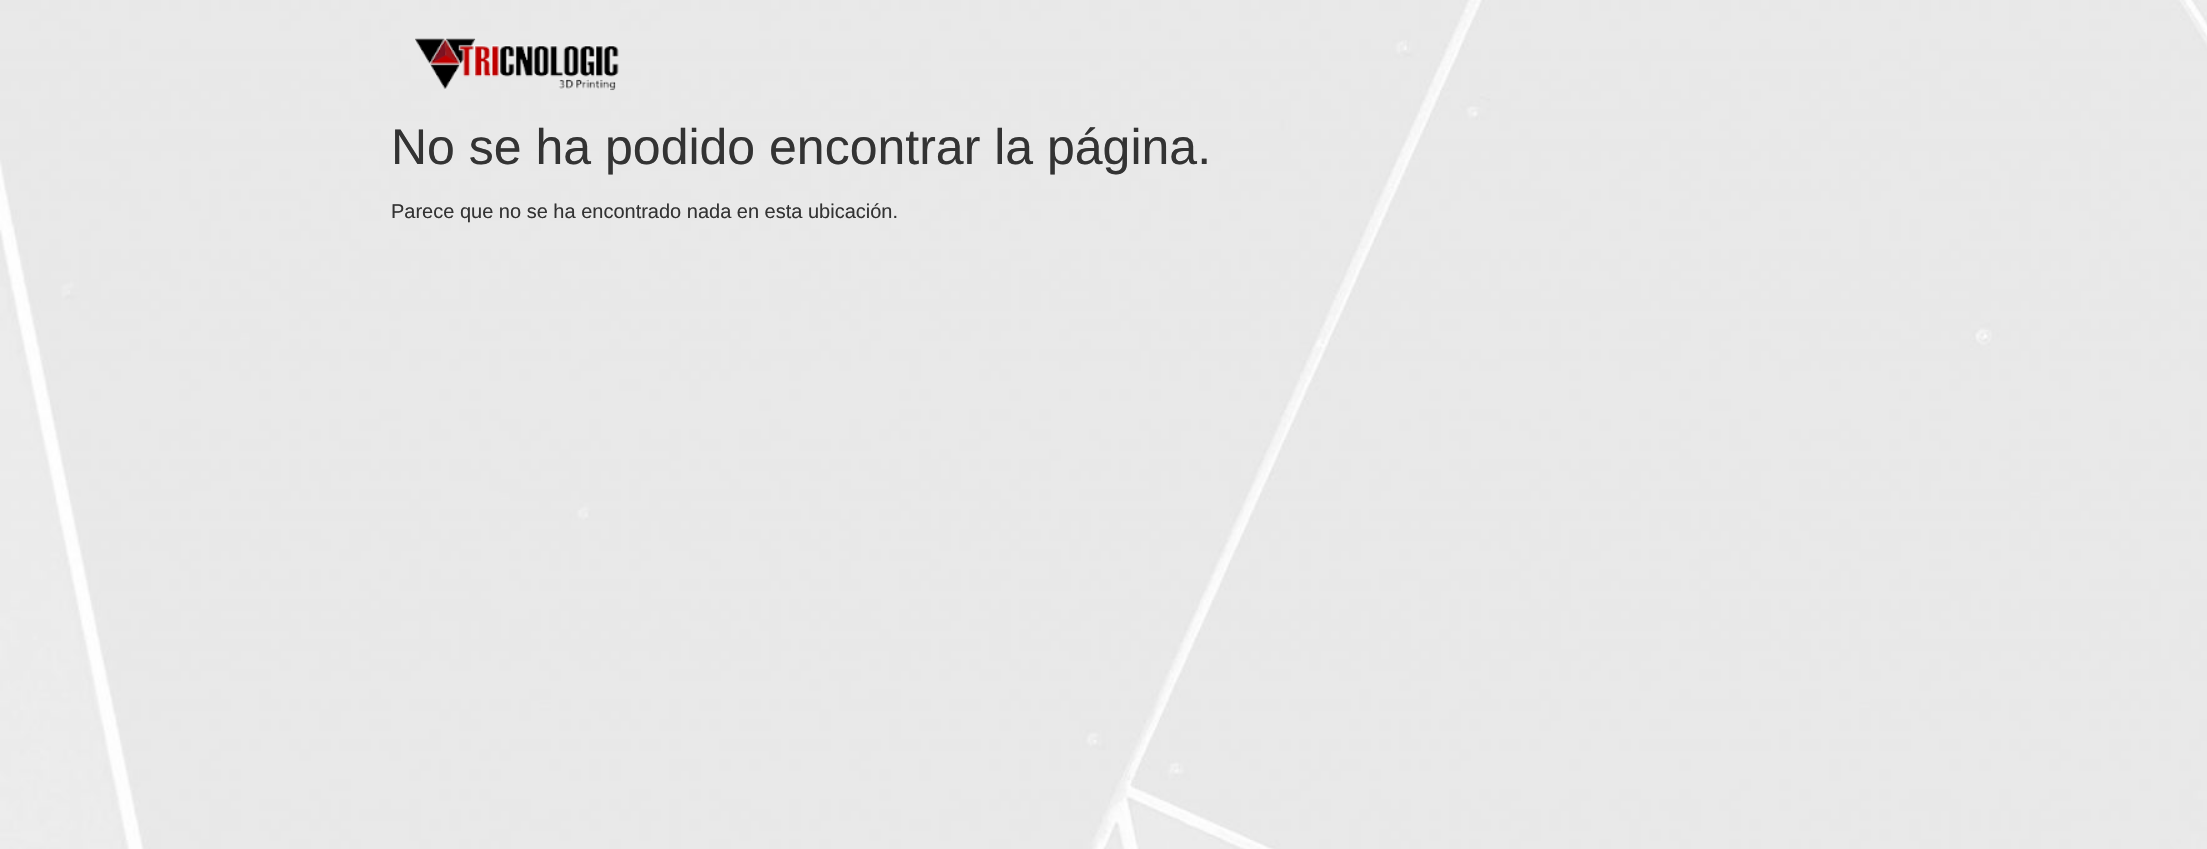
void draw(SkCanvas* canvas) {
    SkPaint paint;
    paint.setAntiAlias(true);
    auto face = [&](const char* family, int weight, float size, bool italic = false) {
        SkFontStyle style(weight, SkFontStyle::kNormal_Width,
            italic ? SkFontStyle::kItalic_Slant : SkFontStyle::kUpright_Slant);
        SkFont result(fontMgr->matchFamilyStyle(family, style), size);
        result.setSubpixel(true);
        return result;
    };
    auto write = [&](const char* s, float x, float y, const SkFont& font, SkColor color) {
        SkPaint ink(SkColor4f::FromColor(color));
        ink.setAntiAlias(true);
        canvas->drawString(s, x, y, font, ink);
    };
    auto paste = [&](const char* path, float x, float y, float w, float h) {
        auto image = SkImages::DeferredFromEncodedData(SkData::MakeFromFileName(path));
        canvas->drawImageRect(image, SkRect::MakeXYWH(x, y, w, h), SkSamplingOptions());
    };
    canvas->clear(SK_ColorWHITE);
    paste("pic1.png", 0, 0, 2207, 849);
    paste("pic2.png", 415, 37, 204, 54);
    auto kFont1 = face("Liberation Sans", 400, 50);
    write("No se ha podido encontrar la página.", 391, 164, kFont1, SkColorSetRGB(51, 51, 51));
    auto kFont2 = face("Liberation Sans", 400, 20);
    write("Parece que no se ha encontrado nada en esta ubicación.", 391, 218, kFont2, SkColorSetRGB(51, 51, 51));
}
